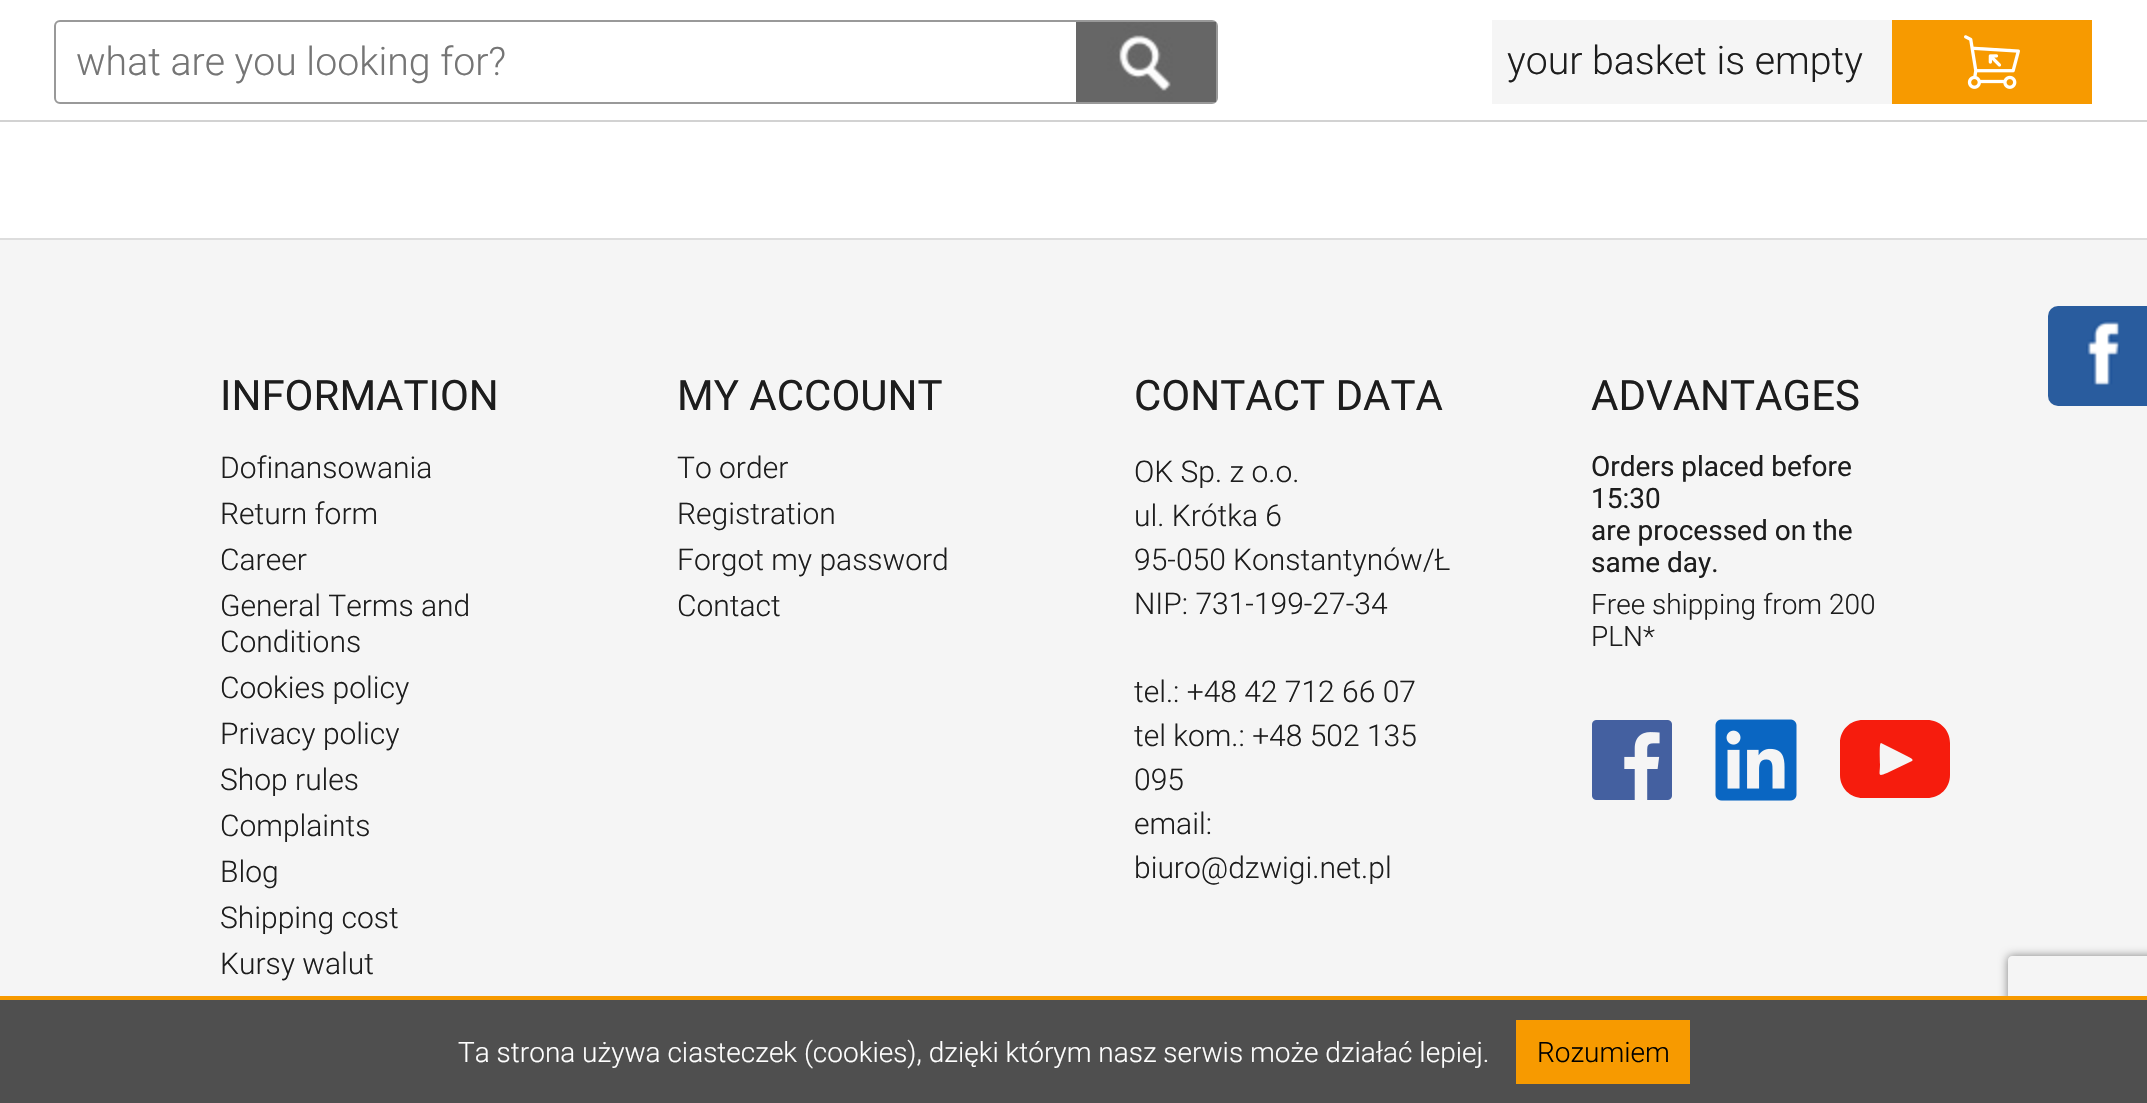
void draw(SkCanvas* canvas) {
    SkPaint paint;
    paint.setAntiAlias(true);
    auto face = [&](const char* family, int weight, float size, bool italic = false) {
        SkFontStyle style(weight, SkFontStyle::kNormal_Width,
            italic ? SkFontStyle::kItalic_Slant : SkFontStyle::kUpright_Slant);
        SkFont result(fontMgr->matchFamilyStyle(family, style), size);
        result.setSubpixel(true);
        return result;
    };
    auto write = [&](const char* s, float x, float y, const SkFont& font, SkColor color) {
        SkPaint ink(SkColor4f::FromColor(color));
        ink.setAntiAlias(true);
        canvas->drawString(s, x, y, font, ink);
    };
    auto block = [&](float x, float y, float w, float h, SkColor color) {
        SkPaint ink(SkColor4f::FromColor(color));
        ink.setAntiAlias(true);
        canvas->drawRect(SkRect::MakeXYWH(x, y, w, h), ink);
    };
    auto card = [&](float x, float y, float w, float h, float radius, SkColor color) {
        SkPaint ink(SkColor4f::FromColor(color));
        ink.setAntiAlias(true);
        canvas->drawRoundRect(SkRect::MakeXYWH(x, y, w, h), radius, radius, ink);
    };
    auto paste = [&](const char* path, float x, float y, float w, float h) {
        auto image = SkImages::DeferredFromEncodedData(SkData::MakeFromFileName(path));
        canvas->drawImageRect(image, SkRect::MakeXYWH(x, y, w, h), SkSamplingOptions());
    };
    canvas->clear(SK_ColorWHITE);
    block(0, 120, 2147, 2, SkColorSetRGB(210, 210, 210));
    paint.setStyle(SkPaint::kStroke_Style);
    paint.setStrokeWidth(2);
    paint.setColor(SkColorSetRGB(153, 153, 153));
    canvas->drawRoundRect(SkRect::MakeXYWH(55, 21, 1162, 82), 5, 5, paint);
    auto kFont1 = face("Roboto", 300, 39.25f);
    write("what are you looking for?", 76, 75, kFont1, SkColorSetRGB(117, 117, 117));
    paste("pic1.png", 1076, 22, 140, 80);
    block(1492, 20, 400, 84, SkColorSetRGB(245, 245, 245));
    write("your basket is empty", 1507, 74, kFont1, SkColorSetRGB(29, 29, 29));
    block(1892, 20, 200, 84, SkColorSetRGB(247, 154, 0));
    paste("pic2.png", 1964, 35, 56, 54);
    block(0, 240, 2147, 756, SkColorSetRGB(245, 245, 245));
    block(0, 238, 2147, 2, SkColorSetRGB(221, 221, 221));
    auto kFont2 = face("Roboto", 400, 42);
    write("INFORMATION", 220, 410, kFont2, SkColorSetRGB(29, 29, 29));
    auto kFont3 = face("Roboto", 300, 30);
    write("Dofinansowania", 220, 478, kFont3, SkColorSetRGB(29, 29, 29));
    write("Return form", 220, 524, kFont3, SkColorSetRGB(29, 29, 29));
    write("Career", 220, 570, kFont3, SkColorSetRGB(29, 29, 29));
    write("General Terms and", 220, 616, kFont3, SkColorSetRGB(29, 29, 29));
    write("Conditions", 220, 652, kFont3, SkColorSetRGB(29, 29, 29));
    write("Cookies policy", 220, 698, kFont3, SkColorSetRGB(29, 29, 29));
    write("Privacy policy", 220, 744, kFont3, SkColorSetRGB(29, 29, 29));
    write("Shop rules", 220, 790, kFont3, SkColorSetRGB(29, 29, 29));
    write("Complaints", 220, 836, kFont3, SkColorSetRGB(29, 29, 29));
    write("Blog", 220, 882, kFont3, SkColorSetRGB(29, 29, 29));
    write("Shipping cost", 220, 928, kFont3, SkColorSetRGB(29, 29, 29));
    write("Kursy walut", 220, 974, kFont3, SkColorSetRGB(29, 29, 29));
    write("MY ACCOUNT", 677, 410, kFont2, SkColorSetRGB(29, 29, 29));
    write("To order", 677, 478, kFont3, SkColorSetRGB(29, 29, 29));
    write("Registration", 677, 524, kFont3, SkColorSetRGB(29, 29, 29));
    write("Forgot my password", 677, 570, kFont3, SkColorSetRGB(29, 29, 29));
    write("Contact", 677, 616, kFont3, SkColorSetRGB(29, 29, 29));
    write("CONTACT DATA", 1134, 410, kFont2, SkColorSetRGB(29, 29, 29));
    write("OK Sp. z o.o.", 1134, 482, kFont3, SkColorSetRGB(29, 29, 29));
    write("ul. Krótka 6", 1134, 526, kFont3, SkColorSetRGB(29, 29, 29));
    write("95-050 Konstantynów/Ł", 1134, 570, kFont3, SkColorSetRGB(29, 29, 29));
    write("NIP: 731-199-27-34", 1134, 614, kFont3, SkColorSetRGB(29, 29, 29));
    write("tel.: +48 42 712 66 07", 1134, 702, kFont3, SkColorSetRGB(29, 29, 29));
    write("tel kom.: +48 502 135", 1134, 746, kFont3, SkColorSetRGB(29, 29, 29));
    write("095", 1134, 790, kFont3, SkColorSetRGB(29, 29, 29));
    write("email:", 1134, 834, kFont3, SkColorSetRGB(29, 29, 29));
    write("biuro@dzwigi.net.pl", 1134, 878, kFont3, SkColorSetRGB(29, 29, 29));
    write("ADVANTAGES", 1591, 410, kFont2, SkColorSetRGB(29, 29, 29));
    auto kFont4 = face("Roboto", 400, 28);
    write("Orders placed before", 1591, 476, kFont4, SkColorSetRGB(29, 29, 29));
    write("15:30", 1591, 508, kFont4, SkColorSetRGB(29, 29, 29));
    write("are processed on the", 1591, 540, kFont4, SkColorSetRGB(29, 29, 29));
    write("same day.", 1591, 572, kFont4, SkColorSetRGB(29, 29, 29));
    auto kFont5 = face("Roboto", 300, 28);
    write("Free shipping from 200", 1591, 614, kFont5, SkColorSetRGB(29, 29, 29));
    write("PLN*", 1591, 646, kFont5, SkColorSetRGB(29, 29, 29));
    paste("pic3.png", 1592, 720, 80, 80);
    paste("pic4.png", 1715, 719, 82, 82);
    paint.setStyle(SkPaint::kFill_Style);
    paint.setColor(SkColorSetRGB(246, 28, 13));
    canvas->drawPath(SkPathBuilder().moveTo(1927, 720).lineTo(1863, 720).cubicTo(1850, 720, 1840, 730, 1840, 743).lineTo(1840, 775).cubicTo(1840, 788, 1850, 798, 1863, 798).lineTo(1927, 798).cubicTo(1940, 798, 1950, 788, 1950, 775).lineTo(1950, 743).cubicTo(1950, 730, 1940, 720, 1927, 720).close().moveTo(1912, 761).lineTo(1887, 773).cubicTo(1877, 777, 1880, 775, 1880, 764).cubicTo(1880, 760, 1879, 743, 1881, 743).lineTo(1897, 751).cubicTo(1908, 757, 1915, 759, 1912, 761).close().detach(), paint);
    card(2048, 306, 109, 100, 10, SkColorSetRGB(41, 92, 158));
    paste("pic5.png", 2086, 320, 34, 65);
    canvas->save();
    canvas->clipPath(SkPathBuilder(SkPathFillType::kEvenOdd).moveTo(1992, 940).lineTo(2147, 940).lineTo(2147, 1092).lineTo(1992, 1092).close().moveTo(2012, 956).lineTo(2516, 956).cubicTo(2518, 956, 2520, 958, 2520, 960).lineTo(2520, 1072).cubicTo(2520, 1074, 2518, 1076, 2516, 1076).lineTo(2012, 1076).cubicTo(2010, 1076, 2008, 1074, 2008, 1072).lineTo(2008, 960).cubicTo(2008, 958, 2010, 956, 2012, 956).close().detach(), true);
    paint.setColor(SkColorSetRGB(128, 128, 128));
    paint.setMaskFilter(SkMaskFilter::MakeBlur(kNormal_SkBlurStyle, 5));
    canvas->drawRoundRect(SkRect::MakeXYWH(2008, 956, 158, 120), 4, 4, paint);
    paint.setMaskFilter(nullptr);
    canvas->restore();
    block(0, 1000, 2147, 103, SkColorSetRGB(79, 79, 79));
    block(0, 996, 2147, 4, SkColorSetRGB(247, 154, 0));
    write("Ta strona używa ciasteczek (cookies), dzięki którym nasz serwis może działać lepiej.", 458, 1062, kFont5, SK_ColorWHITE);
    block(1516, 1020, 174, 64, SkColorSetRGB(247, 154, 0));
    write("Rozumiem", 1537, 1062, kFont5, SK_ColorBLACK);
}
